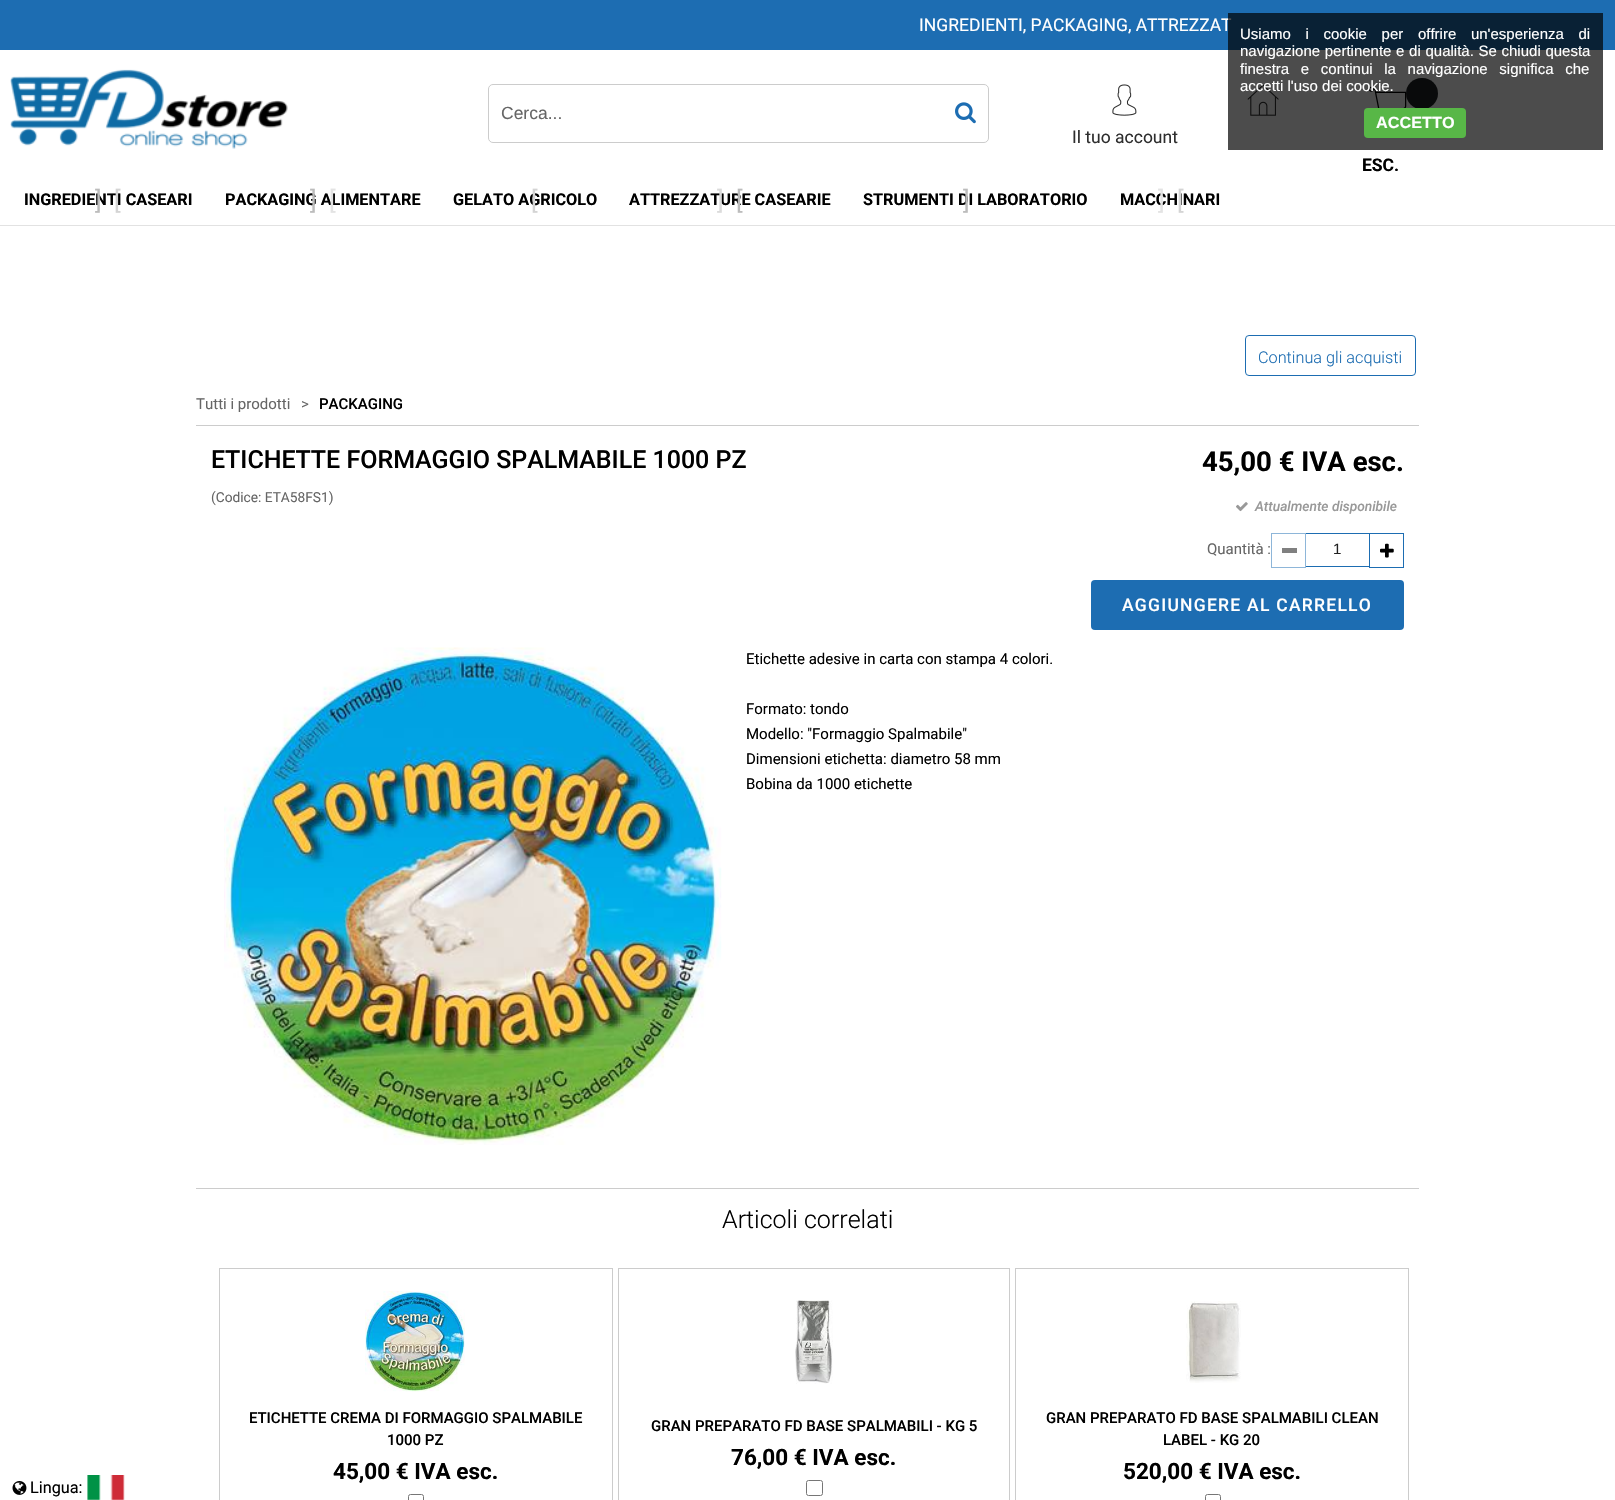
void draw(SkCanvas* canvas) {
    SkPaint paint;
    paint.setAntiAlias(true);
    auto face = [&](const char* family, int weight, float size, bool italic = false) {
        SkFontStyle style(weight, SkFontStyle::kNormal_Width,
            italic ? SkFontStyle::kItalic_Slant : SkFontStyle::kUpright_Slant);
        SkFont result(fontMgr->matchFamilyStyle(family, style), size);
        result.setSubpixel(true);
        return result;
    };
    auto write = [&](const char* s, float x, float y, const SkFont& font, SkColor color) {
        SkPaint ink(SkColor4f::FromColor(color));
        ink.setAntiAlias(true);
        canvas->drawString(s, x, y, font, ink);
    };
    auto writeSpaced = [&](const char* s, float x, float y, const SkFont& font, const SkPaint& ink, float letter, float word) {
        std::vector<SkGlyphID> glyphs(font.countText(s, strlen(s), SkTextEncoding::kUTF8));
        std::vector<float> xs(glyphs.size());
        font.textToGlyphs(s, strlen(s), SkTextEncoding::kUTF8, glyphs);
        font.getXPos(glyphs, xs, x);
        float extra = 0;
        for (size_t i = 0; i < glyphs.size(); i++) {
            xs[i] += extra;
            extra += letter + word * (glyphs[i] == font.unicharToGlyph(' '));
        }
        canvas->drawTextBlob(SkTextBlob::MakeFromPosHGlyphs(glyphs, xs, y, font), 0, 0, ink);
    };
    auto block = [&](float x, float y, float w, float h, SkColor color) {
        SkPaint ink(SkColor4f::FromColor(color));
        ink.setAntiAlias(true);
        canvas->drawRect(SkRect::MakeXYWH(x, y, w, h), ink);
    };
    auto card = [&](float x, float y, float w, float h, float radius, SkColor color) {
        SkPaint ink(SkColor4f::FromColor(color));
        ink.setAntiAlias(true);
        canvas->drawRoundRect(SkRect::MakeXYWH(x, y, w, h), radius, radius, ink);
    };
    auto paste = [&](const char* path, float x, float y, float w, float h) {
        auto image = SkImages::DeferredFromEncodedData(SkData::MakeFromFileName(path));
        canvas->drawImageRect(image, SkRect::MakeXYWH(x, y, w, h), SkSamplingOptions());
    };
    canvas->clear(SK_ColorWHITE);
    block(0, 0, 1615, 50, SkColorSetRGB(29, 109, 178));
    block(0, 225, 1615, 1, SkColorSetRGB(226, 226, 226));
    auto kFont1 = face("Roboto", 400, 17.5f);
    write("INGREDIENTI, PACKAGING, ATTREZZAT", 919, 31, kFont1, SK_ColorWHITE);
    paste("pic1.png", 10, 69, 278, 80);
    paint.setStyle(SkPaint::kStroke_Style);
    paint.setStrokeWidth(1);
    paint.setColor(SkColorSetRGB(204, 204, 204));
    canvas->drawRoundRect(SkRect::MakeXYWH(488.5f, 84.5f, 500, 58), 4.5f, 4.5f, paint);
    auto kFont2 = face("Liberation Sans", 400, 17.5f);
    write("Cerca...", 501, 119, kFont2, SkColorSetRGB(102, 102, 102));
    paste("pic2.png", 955, 102, 21, 22);
    paste("pic3.png", 1247, 84, 32, 32);
    paste("pic4.png", 1112, 84, 25, 32);
    write("Il tuo account", 1072, 143, kFont1, SkColorSetRGB(46, 46, 46));
    paste("pic5.png", 1368, 86, 39, 22);
    card(1406, 78, 32, 31, 15.5f, SkColorSetRGB(29, 33, 35));
    auto kFont3 = face("Roboto", 700, 17.5f);
    write("ESC.", 1362, 171, kFont3, SK_ColorBLACK);
    auto kFont4 = face("Roboto", 700, 16.25f);
    write("INGREDIENTI CASEARI", 24, 205, kFont4, SK_ColorBLACK);
    auto kFont5 = face("Roboto", 400, 25);
    write("]", 95, 209, kFont5, SkColorSetRGB(188, 188, 188));
    write("[", 114, 209, kFont5, SkColorSetRGB(212, 212, 212));
    write("PACKAGING ALIMENTARE", 225, 205, kFont4, SK_ColorBLACK);
    write("]", 310, 209, kFont5, SkColorSetRGB(188, 188, 188));
    write("[", 329, 209, kFont5, SkColorSetRGB(227, 227, 227));
    write("GELATO AGRICOLO", 453, 205, kFont4, SK_ColorBLACK);
    write("[", 531, 209, kFont5, SkColorSetRGB(212, 212, 212));
    write("ATTREZZATURE CASEARIE", 629, 205, kFont4, SK_ColorBLACK);
    write("]", 717, 209, kFont5, SkColorSetRGB(219, 219, 219));
    write("[", 736, 209, kFont5, SkColorSetRGB(188, 188, 188));
    write("STRUMENTI DI LABORATORIO", 863, 205, kFont4, SK_ColorBLACK);
    write("]", 963, 209, kFont5, SkColorSetRGB(188, 188, 188));
    write("MACCHINARI", 1120, 205, kFont4, SK_ColorBLACK);
    write("]", 1158, 209, kFont5, SkColorSetRGB(227, 227, 227));
    write("[", 1177, 209, kFont5, SkColorSetRGB(212, 212, 212));
    paint.setColor(SkColorSetRGB(29, 109, 178));
    canvas->drawRoundRect(SkRect::MakeXYWH(1245.5f, 335.5f, 170, 40), 3.5f, 3.5f, paint);
    auto kFont6 = face("Roboto", 300, 16.25f);
    write("Continua gli acquisti", 1258, 363, kFont6, SkColorSetRGB(29, 109, 178));
    auto kFont7 = face("Roboto", 400, 15);
    write("Tutti i prodotti", 196, 409, kFont7, SkColorSetRGB(102, 102, 102));
    write(">", 301, 409, kFont7, SkColorSetRGB(102, 102, 102));
    auto kFont8 = face("Roboto", 500, 15);
    write("PACKAGING", 319, 409, kFont8, SK_ColorBLACK);
    block(196, 425, 1223, 1, SkColorSetRGB(204, 204, 204));
    auto kFont9 = face("Roboto", 500, 25);
    write("ETICHETTE FORMAGGIO SPALMABILE 1000 PZ", 211, 468, kFont9, SK_ColorBLACK);
    auto kFont10 = face("Roboto", 400, 13.75f);
    write("(Codice: ETA58FS1)", 211, 502, kFont10, SkColorSetRGB(102, 102, 102));
    auto kFont11 = face("Roboto", 700, 27.5f);
    write("45,00 € IVA esc.", 1202, 471, kFont11, SK_ColorBLACK);
    paste("pic6.png", 1236, 502, 12, 10);
    auto kFont12 = face("Roboto", 500, 13.75f, true);
    write("Attualmente disponibile", 1255, 511, kFont12, SkColorSetRGB(153, 153, 153));
    write("Quantità :", 1207, 554, kFont7, SkColorSetRGB(102, 102, 102));
    paint.setColor(SkColorSetRGB(142, 182, 217));
    canvas->drawRect(SkRect::MakeXYWH(1271.5f, 533.5f, 34, 34), paint);
    block(1282, 548, 15, 5, SkColorSetRGB(128, 128, 128));
    block(1306, 533, 63, 1, SkColorSetRGB(29, 109, 178));
    block(1306, 566, 63, 1, SkColorSetRGB(29, 109, 178));
    auto kFont13 = face("Liberation Sans", 400, 15);
    write("1", 1333, 554, kFont13, SkColorSetRGB(33, 33, 33));
    paint.setColor(SkColorSetRGB(29, 109, 178));
    canvas->drawRect(SkRect::MakeXYWH(1369.5f, 533.5f, 34, 34), paint);
    paste("pic7.png", 1380, 543, 14, 15);
    card(1091, 580, 313, 50, 4, SkColorSetRGB(29, 109, 178));
    auto kFont14 = face("Roboto", 500, 17.5f);
    paint.setStyle(SkPaint::kFill_Style);
    paint.setColor(SK_ColorWHITE);
    writeSpaced("AGGIUNGERE AL CARRELLO", 1122, 611, kFont14, paint, 1.25f, 0);
    paste("pic8.png", 224, 647, 498, 498);
    write("Etichette adesive in carta con stampa 4 colori.", 746, 664, kFont7, SK_ColorBLACK);
    write("Formato: tondo", 746, 714, kFont7, SK_ColorBLACK);
    write("Modello: \"Formaggio Spalmabile\"", 746, 739, kFont7, SK_ColorBLACK);
    write("Dimensioni etichetta: diametro 58 mm", 746, 764, kFont7, SK_ColorBLACK);
    write("Bobina da 1000 etichette", 746, 789, kFont7, SK_ColorBLACK);
    block(196, 1188, 1223, 1, SkColorSetRGB(204, 204, 204));
    auto kFont15 = face("Roboto", 300, 25);
    write("Articoli correlati", 722, 1228, kFont15, SK_ColorBLACK);
    paint.setStyle(SkPaint::kStroke_Style);
    paint.setColor(SkColorSetRGB(204, 204, 204));
    canvas->drawRect(SkRect::MakeXYWH(219.5f, 1268.5f, 393, 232), paint);
    paste("pic9.png", 365, 1291, 100, 101);
    write("ETICHETTE CREMA DI FORMAGGIO SPALMABILE", 249, 1423, kFont8, SK_ColorBLACK);
    write("1000 PZ", 387, 1445, kFont8, SK_ColorBLACK);
    auto kFont16 = face("Roboto", 700, 22.5f);
    write("45,00 € IVA esc.", 333, 1479, kFont16, SK_ColorBLACK);
    paint.setColor(SkColorSetRGB(118, 118, 118));
    canvas->drawRoundRect(SkRect::MakeXYWH(408.5f, 1494.5f, 15, 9), 2, 2, paint);
    paint.setColor(SkColorSetRGB(204, 204, 204));
    canvas->drawRect(SkRect::MakeXYWH(618.5f, 1268.5f, 391, 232), paint);
    paste("pic10.png", 795, 1300, 38, 84);
    write("GRAN PREPARATO FD BASE SPALMABILI - KG 5", 651, 1431, kFont8, SK_ColorBLACK);
    write("76,00 € IVA esc.", 731, 1465, kFont16, SK_ColorBLACK);
    paint.setColor(SkColorSetRGB(118, 118, 118));
    canvas->drawRoundRect(SkRect::MakeXYWH(806.5f, 1480.5f, 16, 15), 2, 2, paint);
    paint.setColor(SkColorSetRGB(204, 204, 204));
    canvas->drawRect(SkRect::MakeXYWH(1015.5f, 1268.5f, 393, 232), paint);
    paste("pic11.png", 1186, 1301, 55, 82);
    write("GRAN PREPARATO FD BASE SPALMABILI CLEAN", 1046, 1423, kFont8, SK_ColorBLACK);
    write("LABEL - KG 20", 1163, 1445, kFont8, SK_ColorBLACK);
    write("520,00 € IVA esc.", 1123, 1479, kFont16, SK_ColorBLACK);
    paint.setColor(SkColorSetRGB(118, 118, 118));
    canvas->drawRoundRect(SkRect::MakeXYWH(1205.5f, 1494.5f, 15, 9), 2, 2, paint);
    paste("pic12.png", 12, 1481, 15, 14);
    auto kFont17 = face("Roboto", 400, 16.25f);
    write("Lingua:", 30, 1493, kFont17, SK_ColorBLACK);
    paste("pic13.png", 87, 1475, 38, 25);
    block(1228, 13, 375, 137, SkColorSetARGB(179, 0, 0, 0));
    paint.setStyle(SkPaint::kFill_Style);
    paint.setColor(SK_ColorWHITE);
    writeSpaced("Usiamo i cookie per offrire un'esperienza di", 1240, 39, kFont13, paint, 0, 10.5f);
    writeSpaced("navigazione pertinente e di qualità. Se chiudi questa", 1240, 56, kFont13, paint, 0, 0.5f);
    writeSpaced("finestra e continui la navigazione significa che", 1240, 74, kFont13, paint, 0, 7.5f);
    write("accetti l'uso dei cookie.", 1240, 91, kFont13, SK_ColorWHITE);
    card(1364, 108, 102, 30, 4, SkColorSetRGB(88, 183, 71));
    auto kFont18 = face("Liberation Sans", 700, 16.25f);
    write("ACCETTO", 1376, 128, kFont18, SK_ColorWHITE);
}
